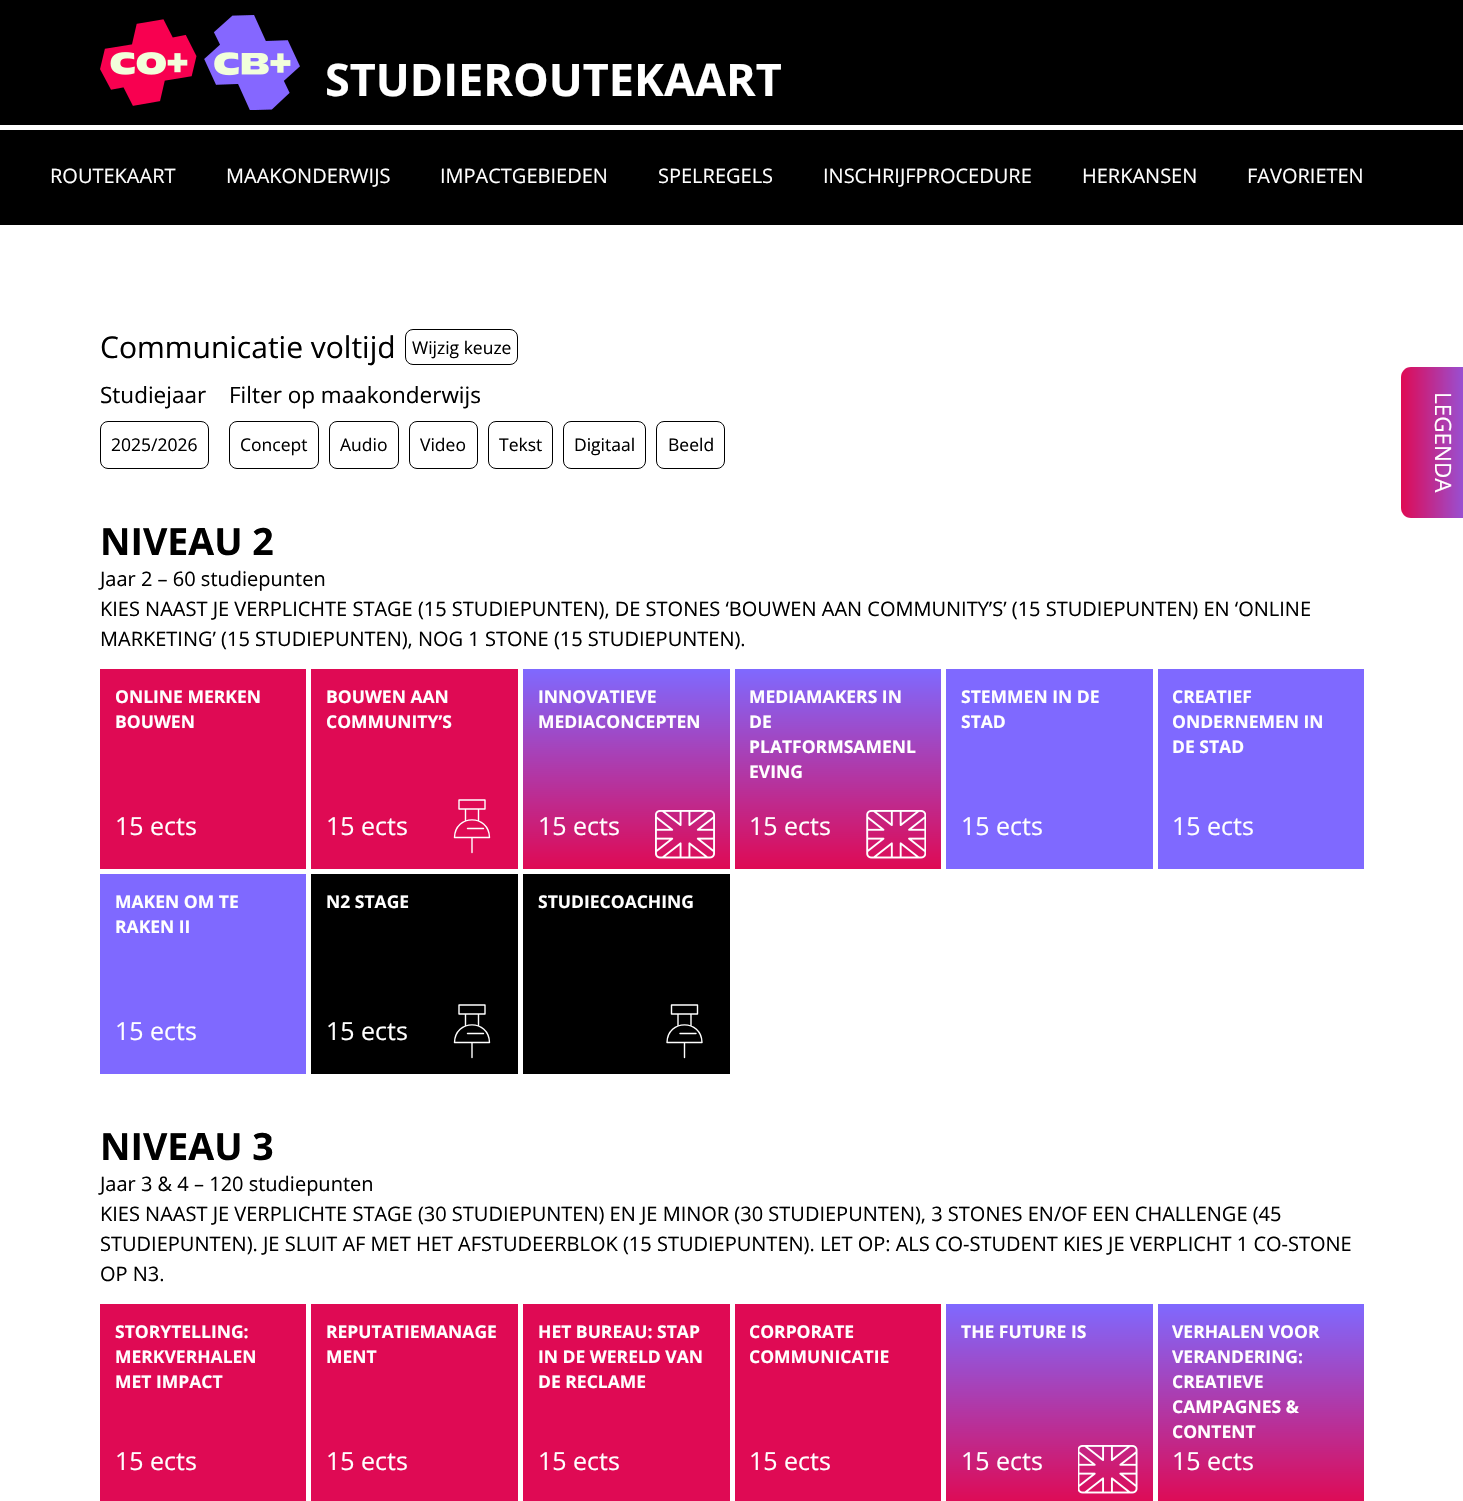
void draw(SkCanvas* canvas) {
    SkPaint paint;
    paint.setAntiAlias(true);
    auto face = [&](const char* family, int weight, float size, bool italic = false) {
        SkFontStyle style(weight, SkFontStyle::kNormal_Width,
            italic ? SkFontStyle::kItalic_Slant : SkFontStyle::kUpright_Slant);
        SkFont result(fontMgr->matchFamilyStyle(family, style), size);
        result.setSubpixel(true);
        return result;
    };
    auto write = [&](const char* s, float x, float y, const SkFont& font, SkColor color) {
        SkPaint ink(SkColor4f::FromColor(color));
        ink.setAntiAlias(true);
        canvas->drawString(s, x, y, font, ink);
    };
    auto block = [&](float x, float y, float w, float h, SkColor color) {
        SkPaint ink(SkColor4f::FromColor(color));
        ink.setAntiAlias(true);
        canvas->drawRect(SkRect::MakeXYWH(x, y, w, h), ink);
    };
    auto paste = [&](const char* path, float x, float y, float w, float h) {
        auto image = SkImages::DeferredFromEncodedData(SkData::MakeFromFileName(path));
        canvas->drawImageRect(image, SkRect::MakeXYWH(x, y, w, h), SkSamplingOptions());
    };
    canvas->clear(SK_ColorWHITE);
    block(0, 0, 1463, 125, SK_ColorBLACK);
    paste("pic1.png", 100, 15, 200, 95);
    auto kFont1 = face("Open Sans", 700, 45);
    write("STUDIEROUTEKAART", 325, 96, kFont1, SK_ColorWHITE);
    block(0, 130, 1463, 95, SK_ColorBLACK);
    auto kFont2 = face("Open Sans", 400, 20);
    write("ROUTEKAART", 50, 183, kFont2, SK_ColorWHITE);
    write("MAAKONDERWIJS", 226, 183, kFont2, SK_ColorWHITE);
    write("IMPACTGEBIEDEN", 440, 183, kFont2, SK_ColorWHITE);
    write("SPELREGELS", 658, 183, kFont2, SK_ColorWHITE);
    write("INSCHRIJFPROCEDURE", 823, 183, kFont2, SK_ColorWHITE);
    write("HERKANSEN", 1082, 183, kFont2, SK_ColorWHITE);
    write("FAVORIETEN", 1247, 183, kFont2, SK_ColorWHITE);
    {
        const SkColor colors[] = {SkColorSetRGB(127, 105, 255), SkColorSetRGB(223, 10, 84)};
        const float stops[] = {0, 1};
        const SkPoint ends[] = {{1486, 442}, {1401, 442}};
        paint.setShader(SkGradientShader::MakeLinear(ends, colors, stops, 2, SkTileMode::kClamp));
        paint.setAlpha(255);
    }
    canvas->drawPath(SkPathBuilder().moveTo(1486, 367).lineTo(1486, 518).lineTo(1411, 518).cubicTo(1405, 518, 1401, 513, 1401, 508).lineTo(1401, 377).cubicTo(1401, 372, 1405, 367, 1411, 367).close().detach(), paint);
    auto kFont3 = face("Open Sans", 400, 22.5f);
    canvas->save();
    canvas->rotate(90, 1435, 392);
    write("LEGENDA", 1435, 392, kFont3, SK_ColorWHITE);
    canvas->restore();
    auto kFont4 = face("Open Sans", 400, 30);
    write("Communicatie voltijd", 100, 358, kFont4, SK_ColorBLACK);
    paint.setStyle(SkPaint::kStroke_Style);
    paint.setStrokeWidth(1);
    paint.setShader(nullptr);
    paint.setColor(SK_ColorBLACK);
    canvas->drawRoundRect(SkRect::MakeXYWH(405.5f, 329.5f, 112, 35), 7.5f, 7.5f, paint);
    auto kFont5 = face("Open Sans", 400, 17.5f);
    write("Wijzig keuze", 412, 354, kFont5, SK_ColorBLACK);
    write("Studiejaar", 100, 403, kFont3, SK_ColorBLACK);
    canvas->drawRoundRect(SkRect::MakeXYWH(100.5f, 421.5f, 108, 47), 7.5f, 7.5f, paint);
    write("2025/2026", 111, 451, kFont5, SK_ColorBLACK);
    write("Filter op maakonderwijs", 229, 403, kFont3, SK_ColorBLACK);
    canvas->drawRoundRect(SkRect::MakeXYWH(229.5f, 421.5f, 89, 47), 7.5f, 7.5f, paint);
    write("Concept", 240, 451, kFont5, SK_ColorBLACK);
    canvas->drawRoundRect(SkRect::MakeXYWH(329.5f, 421.5f, 69, 47), 7.5f, 7.5f, paint);
    write("Audio", 340, 451, kFont5, SK_ColorBLACK);
    canvas->drawRoundRect(SkRect::MakeXYWH(409.5f, 421.5f, 68, 47), 7.5f, 7.5f, paint);
    write("Video", 420, 451, kFont5, SK_ColorBLACK);
    canvas->drawRoundRect(SkRect::MakeXYWH(488.5f, 421.5f, 64, 47), 7.5f, 7.5f, paint);
    write("Tekst", 499, 451, kFont5, SK_ColorBLACK);
    canvas->drawRoundRect(SkRect::MakeXYWH(563.5f, 421.5f, 82, 47), 7.5f, 7.5f, paint);
    write("Digitaal", 574, 451, kFont5, SK_ColorBLACK);
    canvas->drawRoundRect(SkRect::MakeXYWH(656.5f, 421.5f, 68, 47), 7.5f, 7.5f, paint);
    write("Beeld", 668, 451, kFont5, SK_ColorBLACK);
    auto kFont6 = face("Open Sans", 700, 37.5f);
    write("NIVEAU 2", 100, 555, kFont6, SK_ColorBLACK);
    write("Jaar 2 – 60 studiepunten", 100, 586, kFont2, SK_ColorBLACK);
    write("KIES NAAST JE VERPLICHTE STAGE (15 STUDIEPUNTEN), DE STONES ‘BOUWEN AAN COMMUNITY’S’ (15 STUDIEPUNTEN) EN ‘ONLINE", 100, 616, kFont2, SK_ColorBLACK);
    write("MARKETING’ (15 STUDIEPUNTEN), NOG 1 STONE (15 STUDIEPUNTEN).", 100, 646, kFont2, SK_ColorBLACK);
    block(100, 669, 206, 200, SkColorSetRGB(223, 10, 84));
    auto kFont7 = face("Open Sans", 700, 17.5f);
    write("ONLINE MERKEN", 115, 703, kFont7, SK_ColorWHITE);
    write("BOUWEN", 115, 728, kFont7, SK_ColorWHITE);
    auto kFont8 = face("Open Sans", 400, 25);
    write("15 ects", 115, 835, kFont8, SK_ColorWHITE);
    block(311, 669, 207, 200, SkColorSetRGB(223, 10, 84));
    write("BOUWEN AAN", 326, 703, kFont7, SK_ColorWHITE);
    write("COMMUNITY’S", 326, 728, kFont7, SK_ColorWHITE);
    write("15 ects", 326, 835, kFont8, SK_ColorWHITE);
    paint.setStrokeWidth(1.4f);
    paint.setStrokeCap(SkPaint::kRound_Cap);
    paint.setStrokeJoin(SkPaint::kRound_Join);
    paint.setColor(SK_ColorWHITE);
    canvas->drawPath(SkPathBuilder().moveTo(489.5f, 837.5f).cubicTo(489, 814, 455, 814, 454.5f, 837.5f).close().moveTo(467.5f, 828.5f).lineTo(483.5f, 828.5f).moveTo(472, 837.5f).lineTo(472, 852.5f).moveTo(478.5f, 809).lineTo(478.5f, 821).moveTo(465.5f, 821).lineTo(465.5f, 809).moveTo(459, 800).lineTo(485, 800).lineTo(485, 809).lineTo(459, 809).close().detach(), paint);
    paint.setStyle(SkPaint::kFill_Style);
    {
        const SkColor colors[] = {SkColorSetRGB(127, 105, 255), SkColorSetRGB(223, 10, 84)};
        const float stops[] = {0, 1};
        const SkPoint ends[] = {{626, 669}, {626, 869}};
        paint.setShader(SkGradientShader::MakeLinear(ends, colors, stops, 2, SkTileMode::kClamp));
        paint.setAlpha(255);
    }
    canvas->drawRect(SkRect::MakeXYWH(523, 669, 207, 200), paint);
    write("INNOVATIEVE", 538, 703, kFont7, SK_ColorWHITE);
    write("MEDIACONCEPTEN", 538, 728, kFont7, SK_ColorWHITE);
    write("15 ects", 538, 835, kFont8, SK_ColorWHITE);
    paste("pic2.png", 655, 810, 60, 49);
    {
        const SkColor colors[] = {SkColorSetRGB(127, 105, 255), SkColorSetRGB(223, 10, 84)};
        const float stops[] = {0, 1};
        const SkPoint ends[] = {{838, 669}, {838, 869}};
        paint.setShader(SkGradientShader::MakeLinear(ends, colors, stops, 2, SkTileMode::kClamp));
        paint.setAlpha(255);
    }
    canvas->drawRect(SkRect::MakeXYWH(735, 669, 206, 200), paint);
    write("MEDIAMAKERS IN", 749, 703, kFont7, SK_ColorWHITE);
    write("DE", 749, 728, kFont7, SK_ColorWHITE);
    write("PLATFORMSAMENL", 749, 753, kFont7, SK_ColorWHITE);
    write("EVING", 749, 778, kFont7, SK_ColorWHITE);
    write("15 ects", 749, 835, kFont8, SK_ColorWHITE);
    paste("pic3.png", 866, 810, 60, 49);
    block(946, 669, 207, 200, SkColorSetRGB(127, 105, 255));
    write("STEMMEN IN DE", 961, 703, kFont7, SK_ColorWHITE);
    write("STAD", 961, 728, kFont7, SK_ColorWHITE);
    write("15 ects", 961, 835, kFont8, SK_ColorWHITE);
    block(1158, 669, 206, 200, SkColorSetRGB(127, 105, 255));
    write("CREATIEF", 1172, 703, kFont7, SK_ColorWHITE);
    write("ONDERNEMEN IN", 1172, 728, kFont7, SK_ColorWHITE);
    write("DE STAD", 1172, 753, kFont7, SK_ColorWHITE);
    write("15 ects", 1172, 835, kFont8, SK_ColorWHITE);
    block(100, 874, 206, 200, SkColorSetRGB(127, 105, 255));
    write("MAKEN OM TE", 115, 908, kFont7, SK_ColorWHITE);
    write("RAKEN II", 115, 933, kFont7, SK_ColorWHITE);
    write("15 ects", 115, 1040, kFont8, SK_ColorWHITE);
    block(311, 874, 207, 200, SK_ColorBLACK);
    write("N2 STAGE", 326, 908, kFont7, SK_ColorWHITE);
    write("15 ects", 326, 1040, kFont8, SK_ColorWHITE);
    paint.setStyle(SkPaint::kStroke_Style);
    paint.setShader(nullptr);
    paint.setColor(SK_ColorWHITE);
    canvas->drawPath(SkPathBuilder().moveTo(489.5f, 1042.5f).cubicTo(489, 1019, 455, 1019, 454.5f, 1042.5f).close().moveTo(467.5f, 1033.5f).lineTo(483.5f, 1033.5f).moveTo(472, 1042.5f).lineTo(472, 1057.5f).moveTo(478.5f, 1014).lineTo(478.5f, 1026).moveTo(465.5f, 1026).lineTo(465.5f, 1014).moveTo(459, 1005).lineTo(485, 1005).lineTo(485, 1014).lineTo(459, 1014).close().detach(), paint);
    block(523, 874, 207, 200, SK_ColorBLACK);
    write("STUDIECOACHING", 538, 908, kFont7, SK_ColorWHITE);
    canvas->drawPath(SkPathBuilder().moveTo(702, 1042.5f).cubicTo(701.5f, 1019, 667.5f, 1019, 667, 1042.5f).close().moveTo(680, 1033.5f).lineTo(696, 1033.5f).moveTo(684.5f, 1042.5f).lineTo(684.5f, 1057.5f).moveTo(691, 1014).lineTo(691, 1026).moveTo(678, 1026).lineTo(678, 1014).moveTo(671.5f, 1005).lineTo(697.5f, 1005).lineTo(697.5f, 1014).lineTo(671.5f, 1014).close().detach(), paint);
    write("NIVEAU 3", 100, 1160, kFont6, SK_ColorBLACK);
    write("Jaar 3 & 4 – 120 studiepunten", 100, 1191, kFont2, SK_ColorBLACK);
    write("KIES NAAST JE VERPLICHTE STAGE (30 STUDIEPUNTEN) EN JE MINOR (30 STUDIEPUNTEN), 3 STONES EN/OF EEN CHALLENGE (45", 100, 1221, kFont2, SK_ColorBLACK);
    write("STUDIEPUNTEN). JE SLUIT AF MET HET AFSTUDEERBLOK (15 STUDIEPUNTEN). LET OP: ALS CO-STUDENT KIES JE VERPLICHT 1 CO-STONE", 100, 1251, kFont2, SK_ColorBLACK);
    write("OP N3.", 100, 1281, kFont2, SK_ColorBLACK);
    block(100, 1304, 206, 197, SkColorSetRGB(223, 10, 84));
    write("STORYTELLING:", 115, 1338, kFont7, SK_ColorWHITE);
    write("MERKVERHALEN", 115, 1363, kFont7, SK_ColorWHITE);
    write("MET IMPACT", 115, 1388, kFont7, SK_ColorWHITE);
    write("15 ects", 115, 1470, kFont8, SK_ColorWHITE);
    block(311, 1304, 207, 197, SkColorSetRGB(223, 10, 84));
    write("REPUTATIEMANAGE", 326, 1338, kFont7, SK_ColorWHITE);
    write("MENT", 326, 1363, kFont7, SK_ColorWHITE);
    write("15 ects", 326, 1470, kFont8, SK_ColorWHITE);
    block(523, 1304, 207, 197, SkColorSetRGB(223, 10, 84));
    write("HET BUREAU: STAP", 538, 1338, kFont7, SK_ColorWHITE);
    write("IN DE WERELD VAN", 538, 1363, kFont7, SK_ColorWHITE);
    write("DE RECLAME", 538, 1388, kFont7, SK_ColorWHITE);
    write("15 ects", 538, 1470, kFont8, SK_ColorWHITE);
    block(735, 1304, 206, 197, SkColorSetRGB(223, 10, 84));
    write("CORPORATE", 749, 1338, kFont7, SK_ColorWHITE);
    write("COMMUNICATIE", 749, 1363, kFont7, SK_ColorWHITE);
    write("15 ects", 749, 1470, kFont8, SK_ColorWHITE);
    paint.setStyle(SkPaint::kFill_Style);
    {
        const SkColor colors[] = {SkColorSetRGB(127, 105, 255), SkColorSetRGB(223, 10, 84)};
        const float stops[] = {0, 1};
        const SkPoint ends[] = {{1049, 1304}, {1049, 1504}};
        paint.setShader(SkGradientShader::MakeLinear(ends, colors, stops, 2, SkTileMode::kClamp));
        paint.setAlpha(255);
    }
    canvas->drawRect(SkRect::MakeXYWH(946, 1304, 207, 197), paint);
    write("THE FUTURE IS", 961, 1338, kFont7, SK_ColorWHITE);
    write("15 ects", 961, 1470, kFont8, SK_ColorWHITE);
    paste("pic4.png", 1078, 1445, 60, 49);
    {
        const SkColor colors[] = {SkColorSetRGB(127, 105, 255), SkColorSetRGB(223, 10, 84)};
        const float stops[] = {0, 1};
        const SkPoint ends[] = {{1261, 1304}, {1261, 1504}};
        paint.setShader(SkGradientShader::MakeLinear(ends, colors, stops, 2, SkTileMode::kClamp));
        paint.setAlpha(255);
    }
    canvas->drawRect(SkRect::MakeXYWH(1158, 1304, 206, 197), paint);
    write("VERHALEN VOOR", 1172, 1338, kFont7, SK_ColorWHITE);
    write("VERANDERING:", 1172, 1363, kFont7, SK_ColorWHITE);
    write("CREATIEVE", 1172, 1388, kFont7, SK_ColorWHITE);
    write("CAMPAGNES &", 1172, 1413, kFont7, SK_ColorWHITE);
    write("CONTENT", 1172, 1438, kFont7, SK_ColorWHITE);
    write("15 ects", 1172, 1470, kFont8, SK_ColorWHITE);
}
